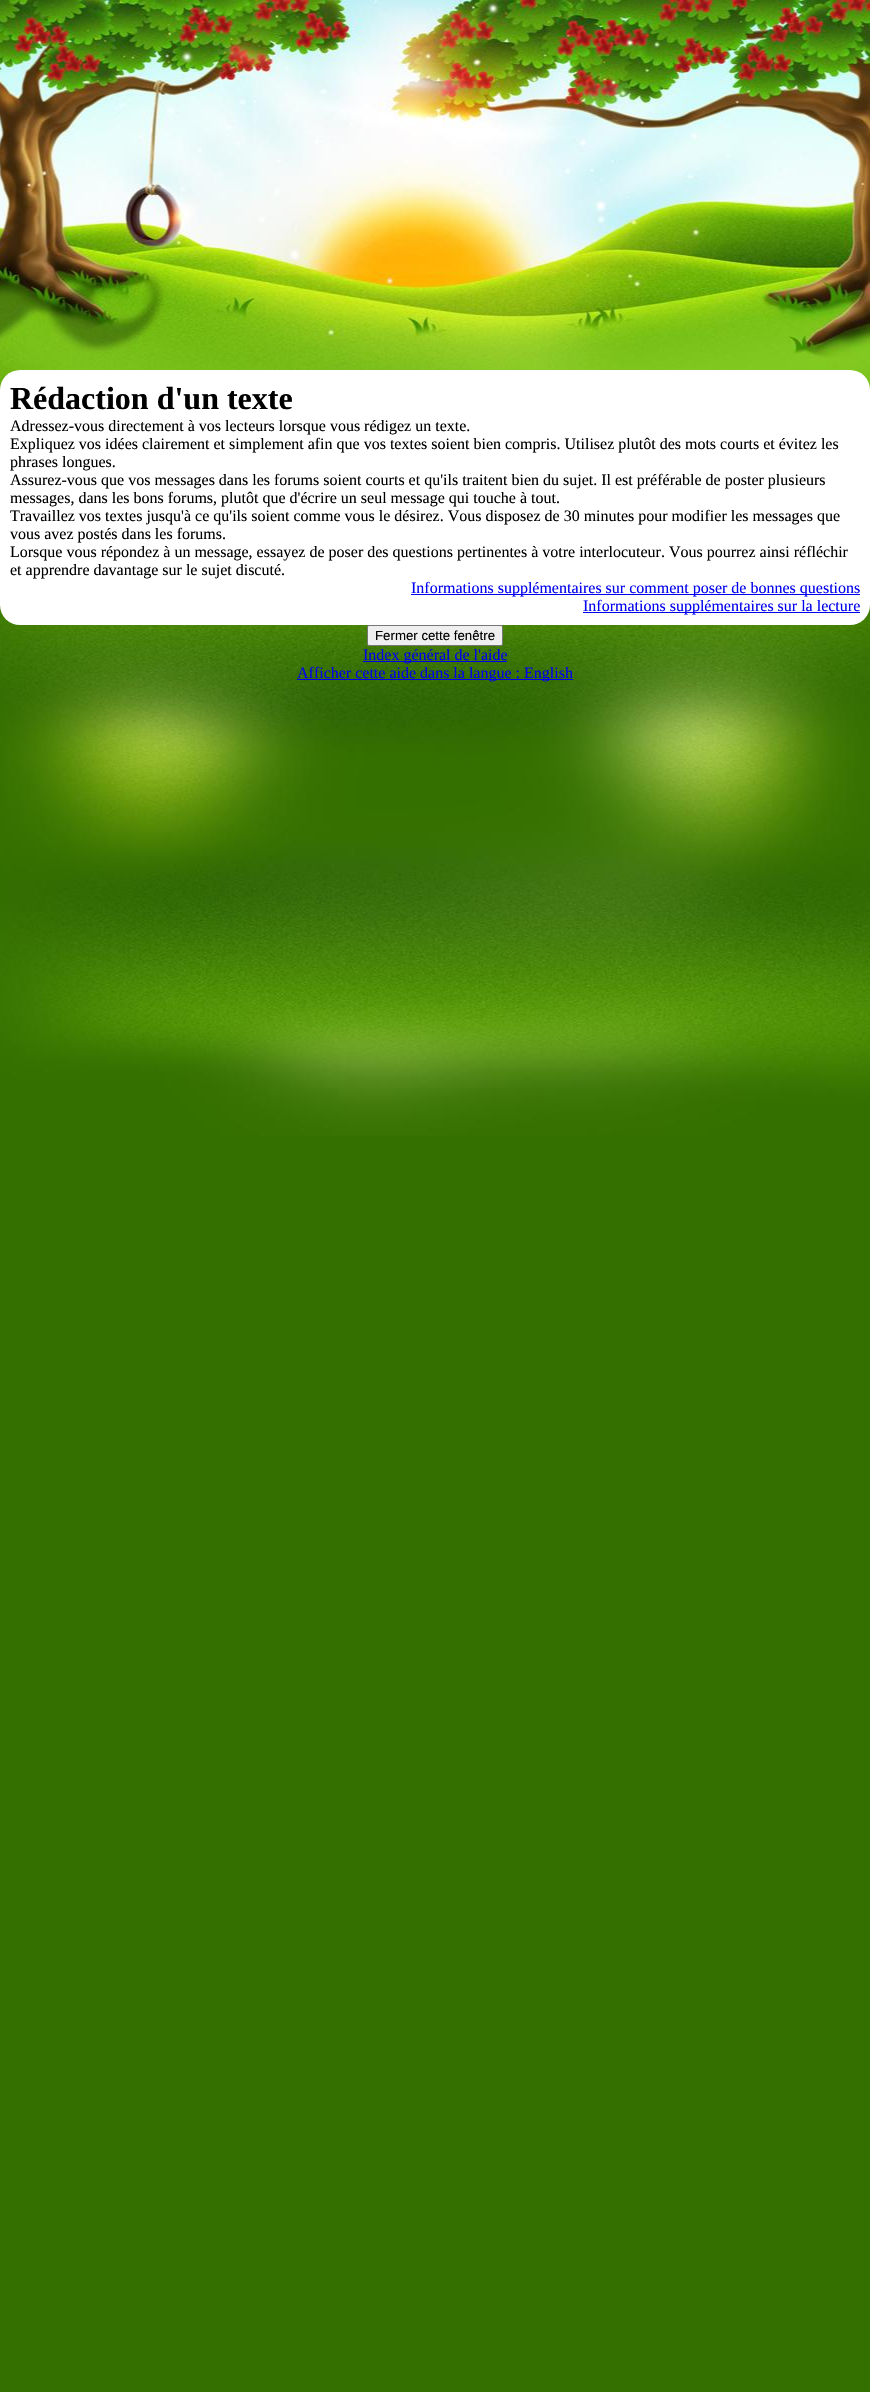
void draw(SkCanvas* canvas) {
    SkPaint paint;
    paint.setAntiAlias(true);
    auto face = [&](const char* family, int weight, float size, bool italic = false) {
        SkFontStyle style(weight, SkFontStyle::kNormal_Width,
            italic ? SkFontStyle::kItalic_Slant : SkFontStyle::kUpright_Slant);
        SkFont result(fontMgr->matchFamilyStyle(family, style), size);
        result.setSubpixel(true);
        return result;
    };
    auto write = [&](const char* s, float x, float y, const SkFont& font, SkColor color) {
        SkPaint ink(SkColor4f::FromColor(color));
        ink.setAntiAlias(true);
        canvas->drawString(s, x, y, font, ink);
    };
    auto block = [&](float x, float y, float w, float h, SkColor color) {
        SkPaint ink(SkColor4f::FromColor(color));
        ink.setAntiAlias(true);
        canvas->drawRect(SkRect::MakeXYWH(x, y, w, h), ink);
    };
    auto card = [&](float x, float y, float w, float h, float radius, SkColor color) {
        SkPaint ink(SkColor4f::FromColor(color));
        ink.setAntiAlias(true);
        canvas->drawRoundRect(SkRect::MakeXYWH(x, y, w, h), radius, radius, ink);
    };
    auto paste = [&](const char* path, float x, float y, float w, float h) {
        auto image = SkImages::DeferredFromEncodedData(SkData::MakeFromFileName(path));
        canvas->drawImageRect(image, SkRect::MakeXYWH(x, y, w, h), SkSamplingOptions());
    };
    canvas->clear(SkColorSetRGB(52, 112, 0));
    paste("pic1.png", 0, 0, 870, 1136);
    card(0, 370, 870, 255, 20, SK_ColorWHITE);
    auto kFont1 = face("Liberation Serif", 700, 32);
    write("Rédaction d'un texte", 10, 409, kFont1, SK_ColorBLACK);
    auto kFont2 = face("Liberation Serif", 400, 16);
    write("Adressez-vous directement à vos lecteurs lorsque vous rédigez un texte.", 10, 431, kFont2, SK_ColorBLACK);
    write("Expliquez vos idées clairement et simplement afin que vos textes soient bien compris. Utilisez plutôt des mots courts et évitez les", 10, 449, kFont2, SK_ColorBLACK);
    write("phrases longues.", 10, 467, kFont2, SK_ColorBLACK);
    write("Assurez-vous que vos messages dans les forums soient courts et qu'ils traitent bien du sujet. Il est préférable de poster plusieurs", 10, 485, kFont2, SK_ColorBLACK);
    write("messages, dans les bons forums, plutôt que d'écrire un seul message qui touche à tout.", 10, 503, kFont2, SK_ColorBLACK);
    write("Travaillez vos textes jusqu'à ce qu'ils soient comme vous le désirez. Vous disposez de 30 minutes pour modifier les messages que", 10, 521, kFont2, SK_ColorBLACK);
    write("vous avez postés dans les forums.", 10, 539, kFont2, SK_ColorBLACK);
    write("Lorsque vous répondez à un message, essayez de poser des questions pertinentes à votre interlocuteur. Vous pourrez ainsi réfléchir", 10, 557, kFont2, SK_ColorBLACK);
    write("et apprendre davantage sur le sujet discuté.", 10, 575, kFont2, SK_ColorBLACK);
    block(411, 594, 449, 1, SkColorSetRGB(0, 0, 238));
    write("Informations supplémentaires sur comment poser de bonnes questions", 411, 593, kFont2, SkColorSetRGB(0, 0, 238));
    block(583, 612, 277, 1, SkColorSetRGB(0, 0, 238));
    write("Informations supplémentaires sur la lecture", 583, 611, kFont2, SkColorSetRGB(0, 0, 238));
    paint.setColor(SkColorSetRGB(239, 239, 239));
    canvas->drawRoundRect(SkRect::MakeXYWH(367.5f, 625.5f, 135, 20), 1.5f, 1.5f, paint);
    paint.setStyle(SkPaint::kStroke_Style);
    paint.setStrokeWidth(1);
    paint.setColor(SkColorSetRGB(118, 118, 118));
    canvas->drawRoundRect(SkRect::MakeXYWH(367.5f, 625.5f, 135, 20), 1.5f, 1.5f, paint);
    auto kFont3 = face("Liberation Sans", 400, 13.25f);
    write("Fermer cette fenêtre", 375, 640, kFont3, SK_ColorBLACK);
    block(363, 661, 144, 1, SkColorSetRGB(0, 0, 238));
    write("Index général de l'aide", 363, 660, kFont2, SkColorSetRGB(0, 0, 238));
    block(297, 679, 276, 1, SkColorSetRGB(0, 0, 238));
    write("Afficher cette aide dans la langue : English", 297, 678, kFont2, SkColorSetRGB(0, 0, 238));
}
